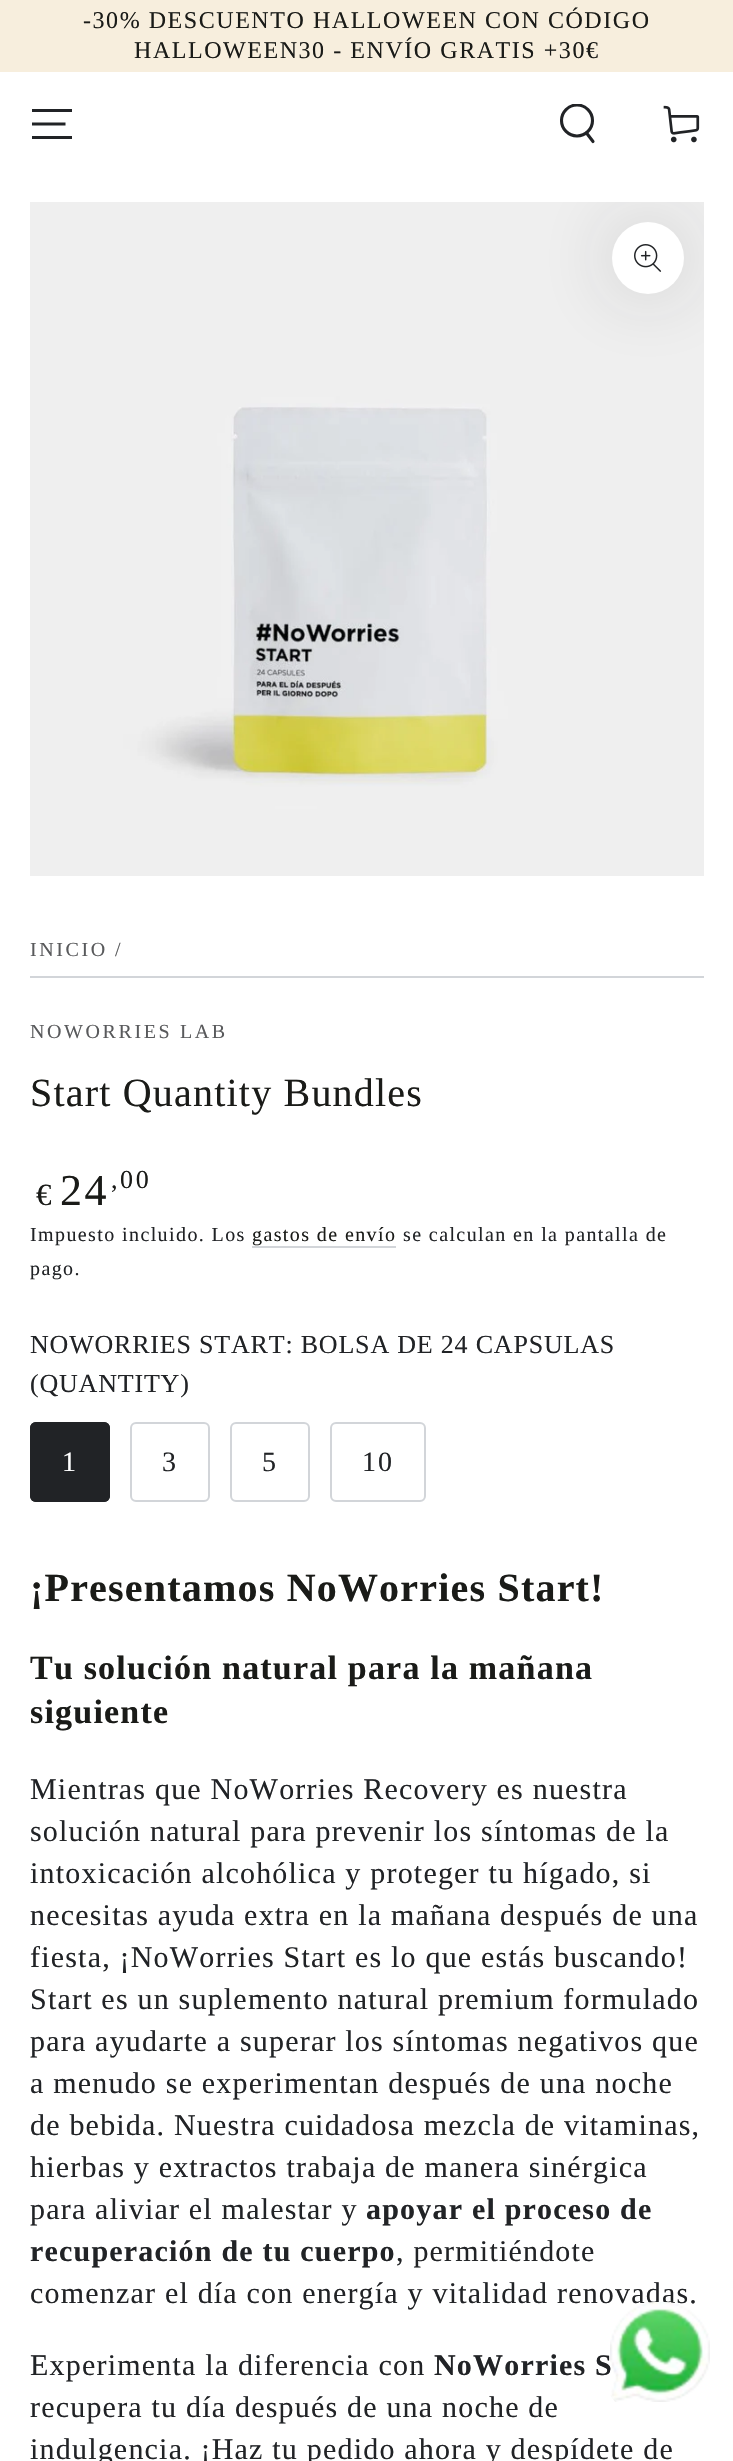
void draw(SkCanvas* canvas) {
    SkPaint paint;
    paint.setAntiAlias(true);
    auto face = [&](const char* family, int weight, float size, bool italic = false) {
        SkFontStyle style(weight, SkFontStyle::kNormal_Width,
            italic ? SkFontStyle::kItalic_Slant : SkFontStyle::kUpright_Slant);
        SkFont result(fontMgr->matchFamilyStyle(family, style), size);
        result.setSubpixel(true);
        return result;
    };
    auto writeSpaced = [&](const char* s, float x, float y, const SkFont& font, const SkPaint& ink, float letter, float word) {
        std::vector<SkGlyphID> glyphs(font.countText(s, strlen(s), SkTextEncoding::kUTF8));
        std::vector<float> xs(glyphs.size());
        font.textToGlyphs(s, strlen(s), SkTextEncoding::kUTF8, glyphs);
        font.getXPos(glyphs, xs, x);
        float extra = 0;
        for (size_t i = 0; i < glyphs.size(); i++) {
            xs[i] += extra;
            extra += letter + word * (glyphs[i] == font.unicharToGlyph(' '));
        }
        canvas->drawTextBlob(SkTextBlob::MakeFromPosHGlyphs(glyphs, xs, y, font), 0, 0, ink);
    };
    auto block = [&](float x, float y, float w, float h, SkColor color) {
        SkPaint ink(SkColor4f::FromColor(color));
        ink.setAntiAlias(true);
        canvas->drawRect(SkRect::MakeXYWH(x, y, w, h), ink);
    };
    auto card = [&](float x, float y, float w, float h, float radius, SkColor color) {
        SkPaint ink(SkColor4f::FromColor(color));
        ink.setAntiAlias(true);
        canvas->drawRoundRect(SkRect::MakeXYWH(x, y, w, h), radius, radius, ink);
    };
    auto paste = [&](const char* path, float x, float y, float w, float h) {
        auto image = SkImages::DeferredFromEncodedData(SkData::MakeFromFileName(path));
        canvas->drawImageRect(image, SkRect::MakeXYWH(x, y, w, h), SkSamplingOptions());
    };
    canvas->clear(SK_ColorWHITE);
    block(0, 0, 733, 72, SkColorSetRGB(247, 238, 221));
    auto kFont1 = face("Liberation Serif", 400, 24);
    paint.setColor(SkColorSetRGB(26, 27, 24));
    writeSpaced("-30% DESCUENTO HALLOWEEN CON CÓDIGO", 83, 28, kFont1, paint, 1.55f, 0);
    writeSpaced("HALLOWEEN30 - ENVÍO GRATIS +30€", 134, 58, kFont1, paint, 1.55f, 0);
    paint.setStyle(SkPaint::kStroke_Style);
    paint.setStrokeWidth(2.8f);
    paint.setColor(SkColorSetRGB(33, 35, 38));
    canvas->drawPath(SkPathBuilder().moveTo(32, 137.5f).lineTo(72, 137.5f).moveTo(32, 124).lineTo(65.5f, 124).moveTo(32, 110.5f).lineTo(72, 110.5f).detach(), paint);
    paste("pic3.png", 30, 202, 674, 674);
    canvas->save();
    canvas->clipRect(SkRect::MakeXYWH(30, 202, 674, 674));
    paint.setStyle(SkPaint::kFill_Style);
    paint.setColor(SkColorSetARGB(51, 33, 35, 38));
    paint.setMaskFilter(SkMaskFilter::MakeBlur(kNormal_SkBlurStyle, 40));
    canvas->drawRoundRect(SkRect::MakeXYWH(612, 222, 72, 72), 36, 36, paint);
    paint.setMaskFilter(nullptr);
    canvas->restore();
    canvas->save();
    canvas->clipRect(SkRect::MakeXYWH(558, 104, 40, 40));
    paint.setStyle(SkPaint::kStroke_Style);
    paint.setStrokeWidth(3.1f);
    paint.setColor(SkColorSetRGB(33, 35, 38));
    canvas->drawCircle(577, 120.5f, 15.5f, paint);
    canvas->restore();
    paint.setStrokeCap(SkPaint::kRound_Cap);
    canvas->drawPath(SkPathBuilder().moveTo(586.5f, 133).lineTo(593, 141.5f).detach(), paint);
    paste("pic1.png", 663, 105, 37, 38);
    paint.setStyle(SkPaint::kFill_Style);
    paint.setColor(SK_ColorWHITE);
    canvas->drawCircle(648, 258, 36, paint);
    paste("pic2.png", 634, 244, 28, 28);
    block(30, 976, 674, 2, SkColorSetRGB(210, 213, 217));
    auto kFont2 = face("Liberation Serif", 400, 20);
    paint.setColor(SkColorSetRGB(89, 90, 92));
    writeSpaced("INICIO", 30, 956, kFont2, paint, 2.6f, 0);
    writeSpaced("/", 115, 956, kFont2, paint, 2.6f, 0);
    writeSpaced("NOWORRIES LAB", 30, 1038, kFont2, paint, 2.6f, 0);
    auto kFont3 = face("Liberation Serif", 400, 40);
    paint.setColor(SkColorSetRGB(26, 27, 24));
    writeSpaced("Start Quantity Bundles", 30, 1106, kFont3, paint, 1.2f, 0);
    auto kFont4 = face("Liberation Serif", 400, 31);
    writeSpaced("€", 36, 1205, kFont4, paint, 2.6f, 0);
    auto kFont5 = face("Liberation Serif", 400, 44);
    writeSpaced("24", 60, 1205, kFont5, paint, 2.6f, 0);
    auto kFont6 = face("Liberation Serif", 400, 26);
    writeSpaced(",00", 111, 1188, kFont6, paint, 2.6f, 0);
    paint.setColor(SkColorSetRGB(33, 35, 38));
    writeSpaced("Impuesto incluido. Los", 30, 1241, kFont2, paint, 1.4f, 0);
    paint.setColor(SkColorSetRGB(26, 27, 24));
    writeSpaced("gastos de envío", 252, 1241, kFont2, paint, 1.4f, 0);
    block(252, 1246, 144, 2, SkColorSetRGB(210, 213, 217));
    paint.setColor(SkColorSetRGB(33, 35, 38));
    writeSpaced("se calculan en la pantalla de", 403, 1241, kFont2, paint, 1.4f, 0);
    writeSpaced("pago.", 30, 1275, kFont2, paint, 1.4f, 0);
    writeSpaced("NOWORRIES START: BOLSA DE 24 CAPSULAS", 30, 1353, kFont6, paint, 0.8f, 0);
    writeSpaced("(QUANTITY)", 30, 1392, kFont6, paint, 0.8f, 0);
    paint.setStyle(SkPaint::kStroke_Style);
    paint.setStrokeWidth(4);
    paint.setStrokeCap(SkPaint::kButt_Cap);
    canvas->drawRoundRect(SkRect::MakeXYWH(32, 1424, 76, 76), 4, 4, paint);
    card(30, 1422, 80, 80, 6, SkColorSetRGB(33, 35, 38));
    auto kFont7 = face("Liberation Serif", 400, 28);
    paint.setStyle(SkPaint::kFill_Style);
    paint.setColor(SK_ColorWHITE);
    writeSpaced("1", 62, 1471, kFont7, paint, 2, 0);
    paint.setStyle(SkPaint::kStroke_Style);
    paint.setStrokeWidth(2);
    paint.setColor(SkColorSetRGB(210, 213, 217));
    canvas->drawRoundRect(SkRect::MakeXYWH(131, 1423, 78, 78), 5, 5, paint);
    paint.setStyle(SkPaint::kFill_Style);
    paint.setColor(SkColorSetRGB(33, 35, 38));
    writeSpaced("3", 162, 1471, kFont7, paint, 2, 0);
    paint.setStyle(SkPaint::kStroke_Style);
    paint.setColor(SkColorSetRGB(210, 213, 217));
    canvas->drawRoundRect(SkRect::MakeXYWH(231, 1423, 78, 78), 5, 5, paint);
    paint.setStyle(SkPaint::kFill_Style);
    paint.setColor(SkColorSetRGB(33, 35, 38));
    writeSpaced("5", 262, 1471, kFont7, paint, 2, 0);
    paint.setStyle(SkPaint::kStroke_Style);
    paint.setColor(SkColorSetRGB(210, 213, 217));
    canvas->drawRoundRect(SkRect::MakeXYWH(331, 1423, 94, 78), 5, 5, paint);
    paint.setStyle(SkPaint::kFill_Style);
    paint.setColor(SkColorSetRGB(33, 35, 38));
    writeSpaced("10", 362, 1471, kFont7, paint, 2, 0);
    auto kFont8 = face("Liberation Serif", 700, 40);
    paint.setColor(SkColorSetRGB(26, 27, 24));
    writeSpaced("¡Presentamos NoWorries Start!", 30, 1601, kFont8, paint, 1.2f, 0);
    auto kFont9 = face("Liberation Serif", 700, 34);
    writeSpaced("Tu solución natural para la mañana", 30, 1679, kFont9, paint, 1.2f, 0);
    writeSpaced("siguiente", 30, 1723, kFont9, paint, 1.2f, 0);
    auto kFont10 = face("Liberation Serif", 400, 30);
    paint.setColor(SkColorSetRGB(33, 35, 38));
    writeSpaced("Mientras que NoWorries Recovery es nuestra", 30, 1799, kFont10, paint, 1.2f, 0);
    writeSpaced("solución natural para prevenir los síntomas de la", 30, 1841, kFont10, paint, 1.2f, 0);
    writeSpaced("intoxicación alcohólica y proteger tu hígado, si", 30, 1883, kFont10, paint, 1.2f, 0);
    writeSpaced("necesitas ayuda extra en la mañana después de una", 30, 1925, kFont10, paint, 1.2f, 0);
    writeSpaced("fiesta, ¡NoWorries Start es lo que estás buscando!", 30, 1967, kFont10, paint, 1.2f, 0);
    writeSpaced("Start es un suplemento natural premium formulado", 30, 2009, kFont10, paint, 1.2f, 0);
    writeSpaced("para ayudarte a superar los síntomas negativos que", 30, 2051, kFont10, paint, 1.2f, 0);
    writeSpaced("a menudo se experimentan después de una noche", 30, 2093, kFont10, paint, 1.2f, 0);
    writeSpaced("de bebida. Nuestra cuidadosa mezcla de vitaminas,", 30, 2135, kFont10, paint, 1.2f, 0);
    writeSpaced("hierbas y extractos trabaja de manera sinérgica", 30, 2177, kFont10, paint, 1.2f, 0);
    writeSpaced("para aliviar el malestar y", 30, 2219, kFont10, paint, 1.2f, 0);
    auto kFont11 = face("Liberation Serif", 700, 30);
    writeSpaced("apoyar el proceso de", 366, 2219, kFont11, paint, 1.2f, 0);
    writeSpaced("recuperación de tu cuerpo", 30, 2261, kFont11, paint, 1.2f, 0);
    writeSpaced(", permitiéndote", 396, 2261, kFont10, paint, 1.2f, 0);
    writeSpaced("comenzar el día con energía y vitalidad renovadas.", 30, 2303, kFont10, paint, 1.2f, 0);
    writeSpaced("Experimenta la diferencia con", 30, 2375, kFont10, paint, 1.2f, 0);
    writeSpaced("NoWorries S", 434, 2375, kFont11, paint, 1.2f, 0);
    writeSpaced("recupera tu día después de una noche de", 30, 2417, kFont10, paint, 1.2f, 0);
    writeSpaced("indulgencia. ¡Haz tu pedido ahora y despídete de", 30, 2459, kFont10, paint, 1.2f, 0);
    paste("pic4.png", 610, 2302, 100, 100);
}
